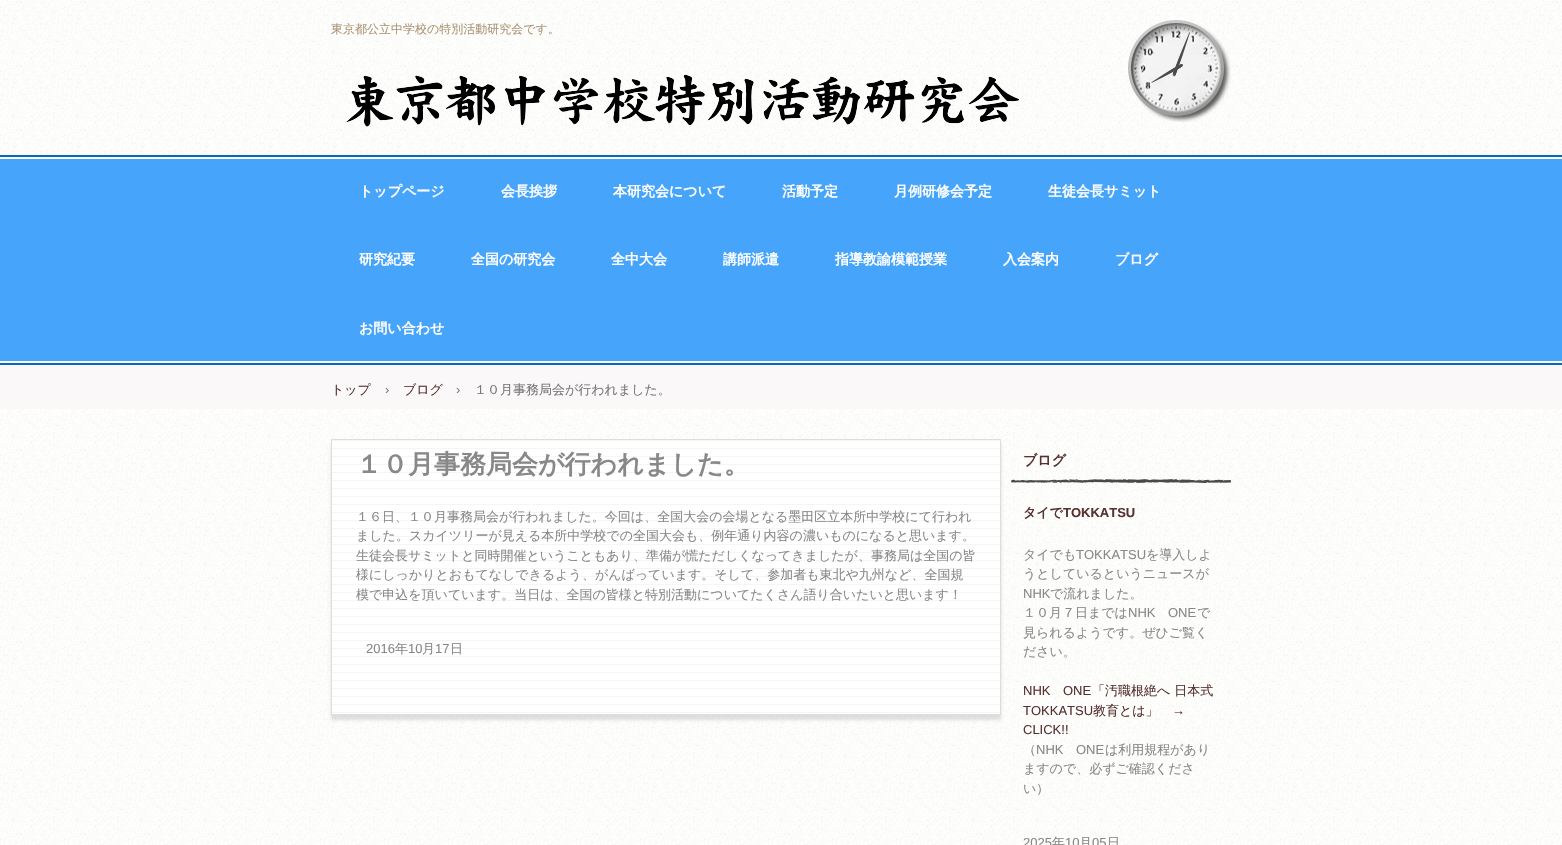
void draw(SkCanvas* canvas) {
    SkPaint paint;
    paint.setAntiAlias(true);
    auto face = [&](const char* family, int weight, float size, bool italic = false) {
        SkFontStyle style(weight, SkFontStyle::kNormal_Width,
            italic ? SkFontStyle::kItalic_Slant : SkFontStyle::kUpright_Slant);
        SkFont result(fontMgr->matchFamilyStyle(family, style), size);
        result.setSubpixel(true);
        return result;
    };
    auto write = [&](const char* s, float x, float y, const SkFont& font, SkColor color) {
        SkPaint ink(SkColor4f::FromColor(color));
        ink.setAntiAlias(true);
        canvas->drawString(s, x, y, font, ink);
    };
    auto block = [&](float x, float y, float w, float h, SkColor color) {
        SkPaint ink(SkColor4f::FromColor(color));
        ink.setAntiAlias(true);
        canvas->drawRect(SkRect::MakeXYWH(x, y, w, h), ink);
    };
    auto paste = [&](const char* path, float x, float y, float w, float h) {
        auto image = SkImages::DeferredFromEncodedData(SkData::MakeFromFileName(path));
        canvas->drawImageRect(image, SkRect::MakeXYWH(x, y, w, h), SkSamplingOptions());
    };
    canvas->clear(SK_ColorWHITE);
    paste("pic1.png", 0, 0, 1562, 845);
    paste("pic2.png", 1128, 20, 103, 102);
    auto kFont1 = face("WenQuanYi Zen Hei", 500, 12);
    write("東京都公立中学校の特別活動研究会です。", 331, 33, kFont1, SkColorSetRGB(172, 149, 119));
    paste("pic3.png", 345, 74, 674, 53);
    block(0, 159, 1562, 202, SkColorSetRGB(70, 165, 251));
    paste("pic4.png", 0, 157, 1562, 206);
    block(0, 155, 1562, 2, SkColorSetRGB(4, 104, 191));
    block(0, 363, 1562, 2, SkColorSetRGB(4, 104, 191));
    auto kFont2 = face("WenQuanYi Zen Hei", 700, 14);
    write("トップページ", 359, 196, kFont2, SK_ColorWHITE);
    write("会長挨拶", 501, 196, kFont2, SK_ColorWHITE);
    write("本研究会について", 613, 196, kFont2, SK_ColorWHITE);
    write("活動予定", 782, 196, kFont2, SK_ColorWHITE);
    write("月例研修会予定", 894, 196, kFont2, SK_ColorWHITE);
    write("生徒会長サミット", 1048, 196, kFont2, SK_ColorWHITE);
    write("研究紀要", 359, 264, kFont2, SK_ColorWHITE);
    write("全国の研究会", 471, 264, kFont2, SK_ColorWHITE);
    write("全中大会", 611, 264, kFont2, SK_ColorWHITE);
    write("講師派遣", 723, 264, kFont2, SK_ColorWHITE);
    write("指導教諭模範授業", 835, 264, kFont2, SK_ColorWHITE);
    write("入会案内", 1003, 264, kFont2, SK_ColorWHITE);
    write("ブログ", 1115, 264, kFont2, SK_ColorWHITE);
    write("お問い合わせ", 359, 333, kFont2, SK_ColorWHITE);
    block(0, 365, 1562, 44, SkColorSetRGB(250, 248, 248));
    auto kFont3 = face("WenQuanYi Zen Hei", 500, 13);
    write("トップ", 331, 394, kFont3, SkColorSetRGB(87, 50, 49));
    auto kFont4 = face("Liberation Sans", 400, 13);
    write("›", 385, 394, kFont4, SkColorSetRGB(119, 119, 119));
    write("ブログ", 403, 394, kFont3, SkColorSetRGB(87, 50, 49));
    write("›", 456, 394, kFont4, SkColorSetRGB(119, 119, 119));
    write("１０月事務局会が行われました。", 474, 394, kFont3, SkColorSetRGB(119, 119, 119));
    paint.setColor(SkColorSetARGB(31, 0, 0, 0));
    paint.setMaskFilter(SkMaskFilter::MakeBlur(kNormal_SkBlurStyle, 1.5f));
    canvas->drawRect(SkRect::MakeXYWH(331, 444, 670, 276), paint);
    paint.setMaskFilter(nullptr);
    block(332, 713, 668, 1, SK_ColorWHITE);
    paste("pic5.png", 332, 440, 668, 273);
    paint.setStyle(SkPaint::kStroke_Style);
    paint.setStrokeWidth(1);
    paint.setColor(SkColorSetRGB(221, 221, 221));
    canvas->drawRect(SkRect::MakeXYWH(331.5f, 439.5f, 669, 275), paint);
    auto kFont5 = face("WenQuanYi Zen Hei", 700, 26);
    write("１０月事務局会が行われました。", 356, 473, kFont5, SkColorSetRGB(136, 136, 136));
    write("１６日、１０月事務局会が行われました。今回は、全国大会の会場となる墨田区立本所中学校にて行われ", 356, 521, kFont3, SkColorSetRGB(136, 136, 136));
    write("ました。スカイツリーが見える本所中学校での全国大会も、例年通り内容の濃いものになると思います。", 356, 540, kFont3, SkColorSetRGB(136, 136, 136));
    write("生徒会長サミットと同時開催ということもあり、準備が慌ただしくなってきましたが、事務局は全国の皆", 356, 560, kFont3, SkColorSetRGB(136, 136, 136));
    write("様にしっかりとおもてなしできるよう、がんばっています。そして、参加者も東北や九州など、全国規", 356, 579, kFont3, SkColorSetRGB(136, 136, 136));
    write("模で申込を頂いています。当日は、全国の皆様と特別活動についてたくさん語り合いたいと思います！", 356, 599, kFont3, SkColorSetRGB(136, 136, 136));
    write("2016", 366, 653, kFont4, SkColorSetRGB(136, 136, 136));
    write("年", 395, 653, kFont3, SkColorSetRGB(136, 136, 136));
    write("10", 408, 653, kFont4, SkColorSetRGB(136, 136, 136));
    write("月", 422, 653, kFont3, SkColorSetRGB(136, 136, 136));
    write("17", 435, 653, kFont4, SkColorSetRGB(136, 136, 136));
    write("日", 450, 653, kFont3, SkColorSetRGB(136, 136, 136));
    paste("pic6.png", 1011, 479, 220, 4);
    write("ブログ", 1023, 465, kFont2, SkColorSetRGB(87, 50, 49));
    auto kFont6 = face("WenQuanYi Zen Hei", 700, 13);
    write("タイで", 1023, 517, kFont6, SkColorSetRGB(87, 50, 49));
    auto kFont7 = face("Liberation Sans", 700, 13);
    write("TOKKATSU", 1063, 517, kFont7, SkColorSetRGB(87, 50, 49));
    write("タイでも", 1023, 559, kFont3, SkColorSetRGB(136, 136, 136));
    write("TOKKATSU", 1076, 559, kFont4, SkColorSetRGB(136, 136, 136));
    write("を導入しよ", 1146, 559, kFont3, SkColorSetRGB(136, 136, 136));
    write("うとしているというニュースが", 1023, 578, kFont3, SkColorSetRGB(136, 136, 136));
    write("NHK", 1023, 598, kFont4, SkColorSetRGB(136, 136, 136));
    write("で流れました。", 1050, 598, kFont3, SkColorSetRGB(136, 136, 136));
    write("１０月７日までは", 1023, 617, kFont3, SkColorSetRGB(136, 136, 136));
    write("NHK", 1128, 617, kFont4, SkColorSetRGB(136, 136, 136));
    write("ONE", 1168, 617, kFont4, SkColorSetRGB(136, 136, 136));
    write("で", 1197, 617, kFont3, SkColorSetRGB(136, 136, 136));
    write("見られるようです。ぜひご覧く", 1023, 637, kFont3, SkColorSetRGB(136, 136, 136));
    write("ださい。", 1023, 656, kFont3, SkColorSetRGB(136, 136, 136));
    write("NHK", 1023, 695, kFont4, SkColorSetRGB(87, 50, 49));
    write("ONE", 1063, 695, kFont4, SkColorSetRGB(87, 50, 49));
    write("「汚職根絶へ 日本式", 1092, 695, kFont3, SkColorSetRGB(87, 50, 49));
    write("TOKKATSU", 1023, 715, kFont4, SkColorSetRGB(87, 50, 49));
    write("教育とは」", 1093, 715, kFont3, SkColorSetRGB(87, 50, 49));
    write("→", 1172, 715, kFont4, SkColorSetRGB(87, 50, 49));
    write("CLICK!!", 1023, 734, kFont4, SkColorSetRGB(87, 50, 49));
    write("（", 1023, 754, kFont3, SkColorSetRGB(136, 136, 136));
    write("NHK", 1036, 754, kFont4, SkColorSetRGB(136, 136, 136));
    write("ONE", 1076, 754, kFont4, SkColorSetRGB(136, 136, 136));
    write("は利用規程があり", 1105, 754, kFont3, SkColorSetRGB(136, 136, 136));
    write("ますので、必ずご確認くださ", 1023, 773, kFont3, SkColorSetRGB(136, 136, 136));
    write("い）", 1023, 793, kFont3, SkColorSetRGB(136, 136, 136));
    write("2025", 1023, 847, kFont4, SkColorSetRGB(136, 136, 136));
    write("年", 1052, 847, kFont3, SkColorSetRGB(136, 136, 136));
    write("10", 1065, 847, kFont4, SkColorSetRGB(136, 136, 136));
    write("月", 1079, 847, kFont3, SkColorSetRGB(136, 136, 136));
    write("05", 1092, 847, kFont4, SkColorSetRGB(136, 136, 136));
    write("日", 1107, 847, kFont3, SkColorSetRGB(136, 136, 136));
}
